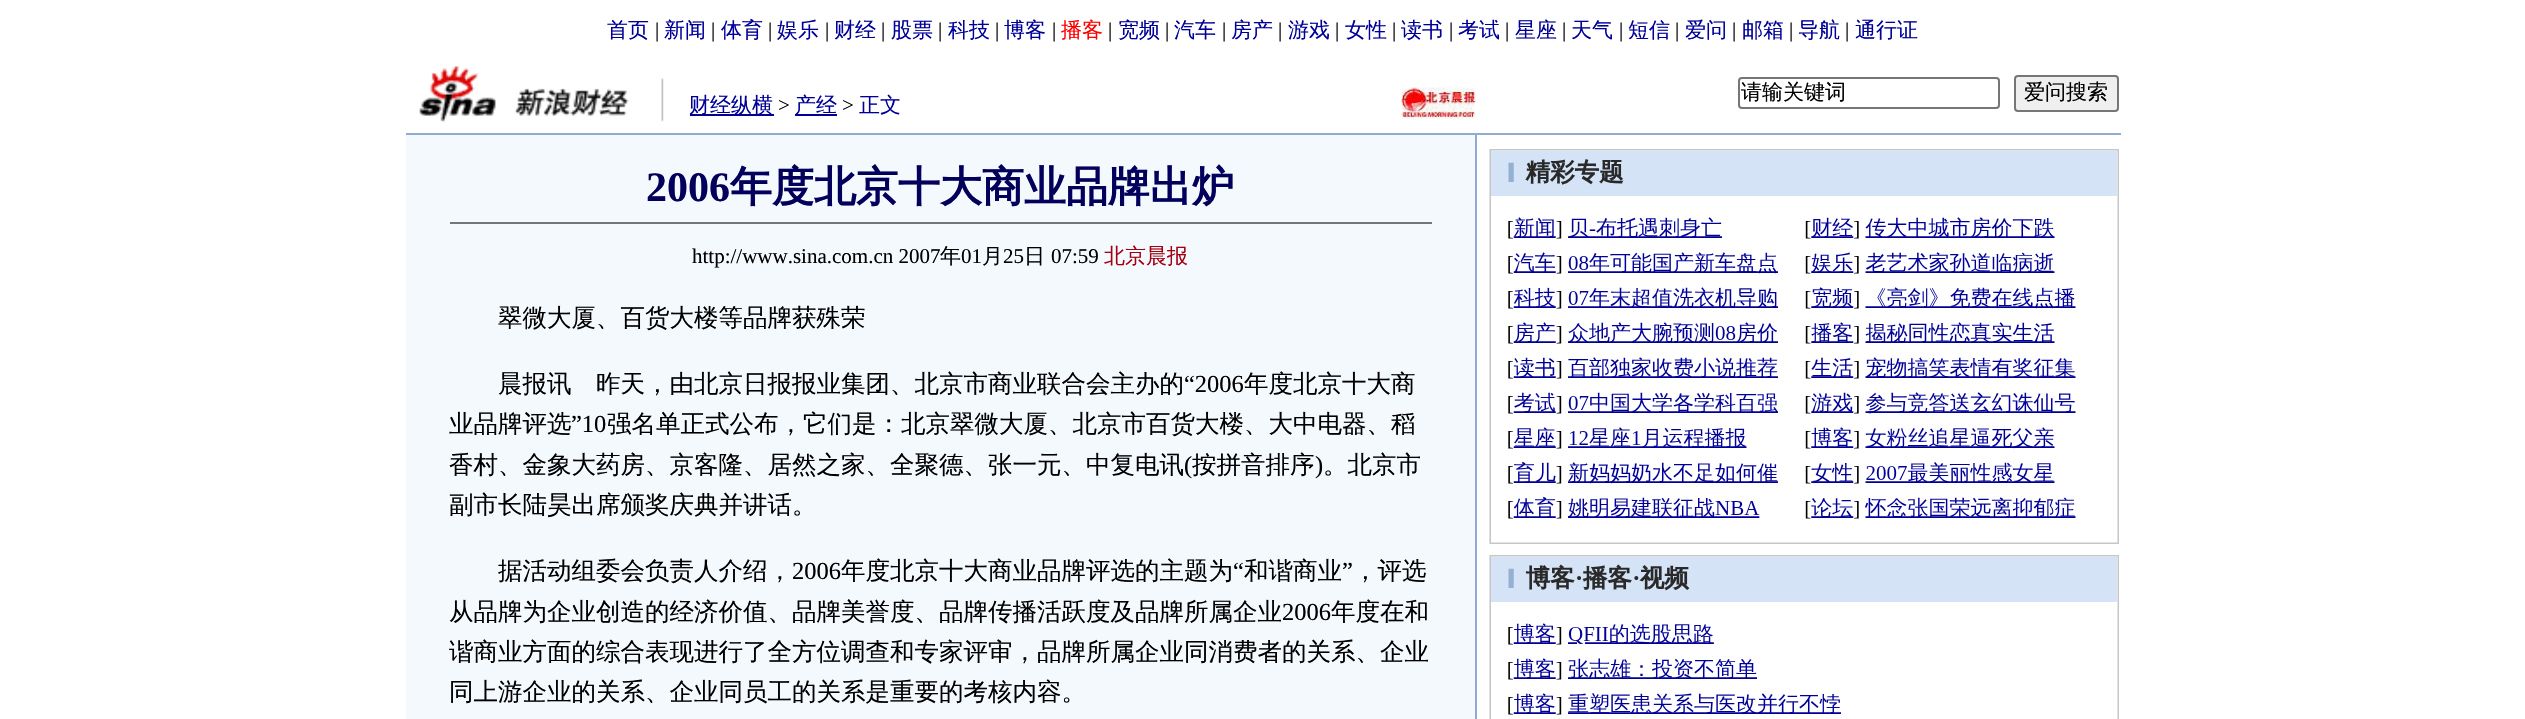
void draw(SkCanvas* canvas) {
    SkPaint paint;
    paint.setAntiAlias(true);
    auto face = [&](const char* family, int weight, float size, bool italic = false) {
        SkFontStyle style(weight, SkFontStyle::kNormal_Width,
            italic ? SkFontStyle::kItalic_Slant : SkFontStyle::kUpright_Slant);
        SkFont result(fontMgr->matchFamilyStyle(family, style), size);
        result.setSubpixel(true);
        return result;
    };
    auto write = [&](const char* s, float x, float y, const SkFont& font, SkColor color) {
        SkPaint ink(SkColor4f::FromColor(color));
        ink.setAntiAlias(true);
        canvas->drawString(s, x, y, font, ink);
    };
    auto block = [&](float x, float y, float w, float h, SkColor color) {
        SkPaint ink(SkColor4f::FromColor(color));
        ink.setAntiAlias(true);
        canvas->drawRect(SkRect::MakeXYWH(x, y, w, h), ink);
    };
    auto paste = [&](const char* path, float x, float y, float w, float h) {
        auto image = SkImages::DeferredFromEncodedData(SkData::MakeFromFileName(path));
        canvas->drawImageRect(image, SkRect::MakeXYWH(x, y, w, h), SkSamplingOptions());
    };
    canvas->clear(SK_ColorWHITE);
    auto kFont1 = face("WenQuanYi Zen Hei", 500, 21);
    write("首页", 607, 37, kFont1, SkColorSetRGB(0, 0, 153));
    auto kFont2 = face("Liberation Serif", 400, 21);
    write("|", 655, 37, kFont2, SK_ColorBLACK);
    write("新闻", 664, 37, kFont1, SkColorSetRGB(0, 0, 153));
    write("|", 711, 37, kFont2, SK_ColorBLACK);
    write("体育", 721, 37, kFont1, SkColorSetRGB(0, 0, 153));
    write("|", 768, 37, kFont2, SK_ColorBLACK);
    write("娱乐", 777, 37, kFont1, SkColorSetRGB(0, 0, 153));
    write("|", 825, 37, kFont2, SK_ColorBLACK);
    write("财经", 834, 37, kFont1, SkColorSetRGB(0, 0, 153));
    write("|", 881, 37, kFont2, SK_ColorBLACK);
    write("股票", 891, 37, kFont1, SkColorSetRGB(0, 0, 153));
    write("|", 938, 37, kFont2, SK_ColorBLACK);
    write("科技", 948, 37, kFont1, SkColorSetRGB(0, 0, 153));
    write("|", 995, 37, kFont2, SK_ColorBLACK);
    write("博客", 1004, 37, kFont1, SkColorSetRGB(0, 0, 153));
    write("|", 1052, 37, kFont2, SK_ColorBLACK);
    write("播客", 1061, 37, kFont1, SkColorSetRGB(255, 0, 0));
    write("|", 1108, 37, kFont2, SK_ColorBLACK);
    write("宽频", 1118, 37, kFont1, SkColorSetRGB(0, 0, 153));
    write("|", 1165, 37, kFont2, SK_ColorBLACK);
    write("汽车", 1174, 37, kFont1, SkColorSetRGB(0, 0, 153));
    write("|", 1222, 37, kFont2, SK_ColorBLACK);
    write("房产", 1231, 37, kFont1, SkColorSetRGB(0, 0, 153));
    write("|", 1278, 37, kFont2, SK_ColorBLACK);
    write("游戏", 1288, 37, kFont1, SkColorSetRGB(0, 0, 153));
    write("|", 1335, 37, kFont2, SK_ColorBLACK);
    write("女性", 1345, 37, kFont1, SkColorSetRGB(0, 0, 153));
    write("|", 1392, 37, kFont2, SK_ColorBLACK);
    write("读书", 1401, 37, kFont1, SkColorSetRGB(0, 0, 153));
    write("|", 1449, 37, kFont2, SK_ColorBLACK);
    write("考试", 1458, 37, kFont1, SkColorSetRGB(0, 0, 153));
    write("|", 1505, 37, kFont2, SK_ColorBLACK);
    write("星座", 1515, 37, kFont1, SkColorSetRGB(0, 0, 153));
    write("|", 1562, 37, kFont2, SK_ColorBLACK);
    write("天气", 1571, 37, kFont1, SkColorSetRGB(0, 0, 153));
    write("|", 1619, 37, kFont2, SK_ColorBLACK);
    write("短信", 1628, 37, kFont1, SkColorSetRGB(0, 0, 153));
    write("|", 1675, 37, kFont2, SK_ColorBLACK);
    write("爱问", 1685, 37, kFont1, SkColorSetRGB(0, 0, 153));
    write("|", 1732, 37, kFont2, SK_ColorBLACK);
    write("邮箱", 1742, 37, kFont1, SkColorSetRGB(0, 0, 153));
    write("|", 1789, 37, kFont2, SK_ColorBLACK);
    write("导航", 1798, 37, kFont1, SkColorSetRGB(0, 0, 153));
    write("|", 1845, 37, kFont2, SK_ColorBLACK);
    write("通行证", 1855, 37, kFont1, SkColorSetRGB(0, 0, 153));
    paint.setStyle(SkPaint::kStroke_Style);
    paint.setStrokeWidth(2);
    paint.setColor(SkColorSetRGB(118, 118, 118));
    canvas->drawRoundRect(SkRect::MakeXYWH(1739, 78, 260, 30), 3, 3, paint);
    write("请输关键词", 1741, 99, kFont1, SK_ColorBLACK);
    paint.setStyle(SkPaint::kFill_Style);
    paint.setColor(SkColorSetRGB(239, 239, 239));
    canvas->drawRoundRect(SkRect::MakeXYWH(2015, 76, 103, 35), 3, 3, paint);
    paint.setStyle(SkPaint::kStroke_Style);
    paint.setColor(SkColorSetRGB(118, 118, 118));
    canvas->drawRoundRect(SkRect::MakeXYWH(2015, 76, 103, 35), 3, 3, paint);
    write("爱问搜索", 2024, 99, kFont1, SK_ColorBLACK);
    paste("pic1.png", 419, 66, 210, 57);
    paste("pic2.png", 661, 78, 3, 44);
    block(690, 114, 84, 2, SkColorSetRGB(0, 0, 153));
    write("财经纵横", 689, 112, kFont1, SkColorSetRGB(0, 0, 153));
    write(">", 778, 112, kFont2, SK_ColorBLACK);
    block(795, 114, 42, 2, SkColorSetRGB(0, 0, 153));
    write("产经", 795, 112, kFont1, SkColorSetRGB(0, 0, 153));
    write(">", 842, 112, kFont2, SK_ColorBLACK);
    write("正文", 859, 112, kFont1, SkColorSetRGB(0, 0, 153));
    paste("pic3.png", 1401, 87, 75, 32);
    block(406, 135, 1069, 584, SkColorSetRGB(244, 249, 254));
    block(406, 133, 1715, 2, SkColorSetRGB(145, 171, 211));
    block(1475, 133, 2, 586, SkColorSetRGB(145, 171, 211));
    block(450, 222, 982, 2, SkColorSetRGB(113, 119, 123));
    auto kFont3 = face("Liberation Serif", 700, 42);
    write("2006", 646, 201, kFont3, SkColorSetRGB(3, 0, 92));
    auto kFont4 = face("WenQuanYi Zen Hei", 700, 42);
    write("年度北京十大商业品牌出炉", 730, 201, kFont4, SkColorSetRGB(3, 0, 92));
    write("http://www.sina.com.cn 2007", 692, 263, kFont2, SK_ColorBLACK);
    write("年", 940, 263, kFont1, SK_ColorBLACK);
    write("01", 961, 263, kFont2, SK_ColorBLACK);
    write("月", 982, 263, kFont1, SK_ColorBLACK);
    write("25", 1003, 263, kFont2, SK_ColorBLACK);
    write("日", 1024, 263, kFont1, SK_ColorBLACK);
    write("07:59", 1051, 263, kFont2, SK_ColorBLACK);
    write("北京晨报", 1104, 263, kFont1, SkColorSetRGB(162, 0, 16));
    auto kFont5 = face("WenQuanYi Zen Hei", 500, 24.5f);
    write("翠微大厦、百货大楼等品牌获殊荣", 498, 326, kFont5, SK_ColorBLACK);
    write("晨报讯　昨天，由北京日报报业集团、北京市商业联合会主办的", 498, 392, kFont5, SK_ColorBLACK);
    auto kFont6 = face("Liberation Serif", 400, 24.5f);
    write("“2006", 1184, 392, kFont6, SK_ColorBLACK);
    write("年度北京十大商", 1244, 392, kFont5, SK_ColorBLACK);
    write("业品牌评选", 449, 432, kFont5, SK_ColorBLACK);
    write("”10", 571, 432, kFont6, SK_ColorBLACK);
    write("强名单正式公布，它们是：北京翠微大厦、北京市百货大楼、大中电器、稻", 607, 432, kFont5, SK_ColorBLACK);
    write("香村、金象大药房、京客隆、居然之家、全聚德、张一元、中复电讯", 449, 473, kFont5, SK_ColorBLACK);
    write("(", 1184, 473, kFont6, SK_ColorBLACK);
    write("按拼音排序", 1192, 473, kFont5, SK_ColorBLACK);
    write(")", 1315, 473, kFont6, SK_ColorBLACK);
    write("。北京市", 1323, 473, kFont5, SK_ColorBLACK);
    write("副市长陆昊出席颁奖庆典并讲话。", 449, 513, kFont5, SK_ColorBLACK);
    write("据活动组委会负责人介绍，", 498, 579, kFont5, SK_ColorBLACK);
    write("2006", 792, 579, kFont6, SK_ColorBLACK);
    write("年度北京十大商业品牌评选的主题为", 841, 579, kFont5, SK_ColorBLACK);
    write("“", 1233, 579, kFont6, SK_ColorBLACK);
    write("和谐商业", 1244, 579, kFont5, SK_ColorBLACK);
    write("”", 1342, 579, kFont6, SK_ColorBLACK);
    write("，评选", 1353, 579, kFont5, SK_ColorBLACK);
    write("从品牌为企业创造的经济价值、品牌美誉度、品牌传播活跃度及品牌所属企业", 449, 620, kFont5, SK_ColorBLACK);
    write("2006", 1282, 620, kFont6, SK_ColorBLACK);
    write("年度在和", 1331, 620, kFont5, SK_ColorBLACK);
    write("谐商业方面的综合表现进行了全方位调查和专家评审，品牌所属企业同消费者的关系、企业", 449, 660, kFont5, SK_ColorBLACK);
    write("同上游企业的关系、企业同员工的关系是重要的考核内容。", 449, 700, kFont5, SK_ColorBLACK);
    paste("pic4.png", 1489, 149, 630, 395);
    paste("pic5.png", 1489, 555, 630, 164);
}
